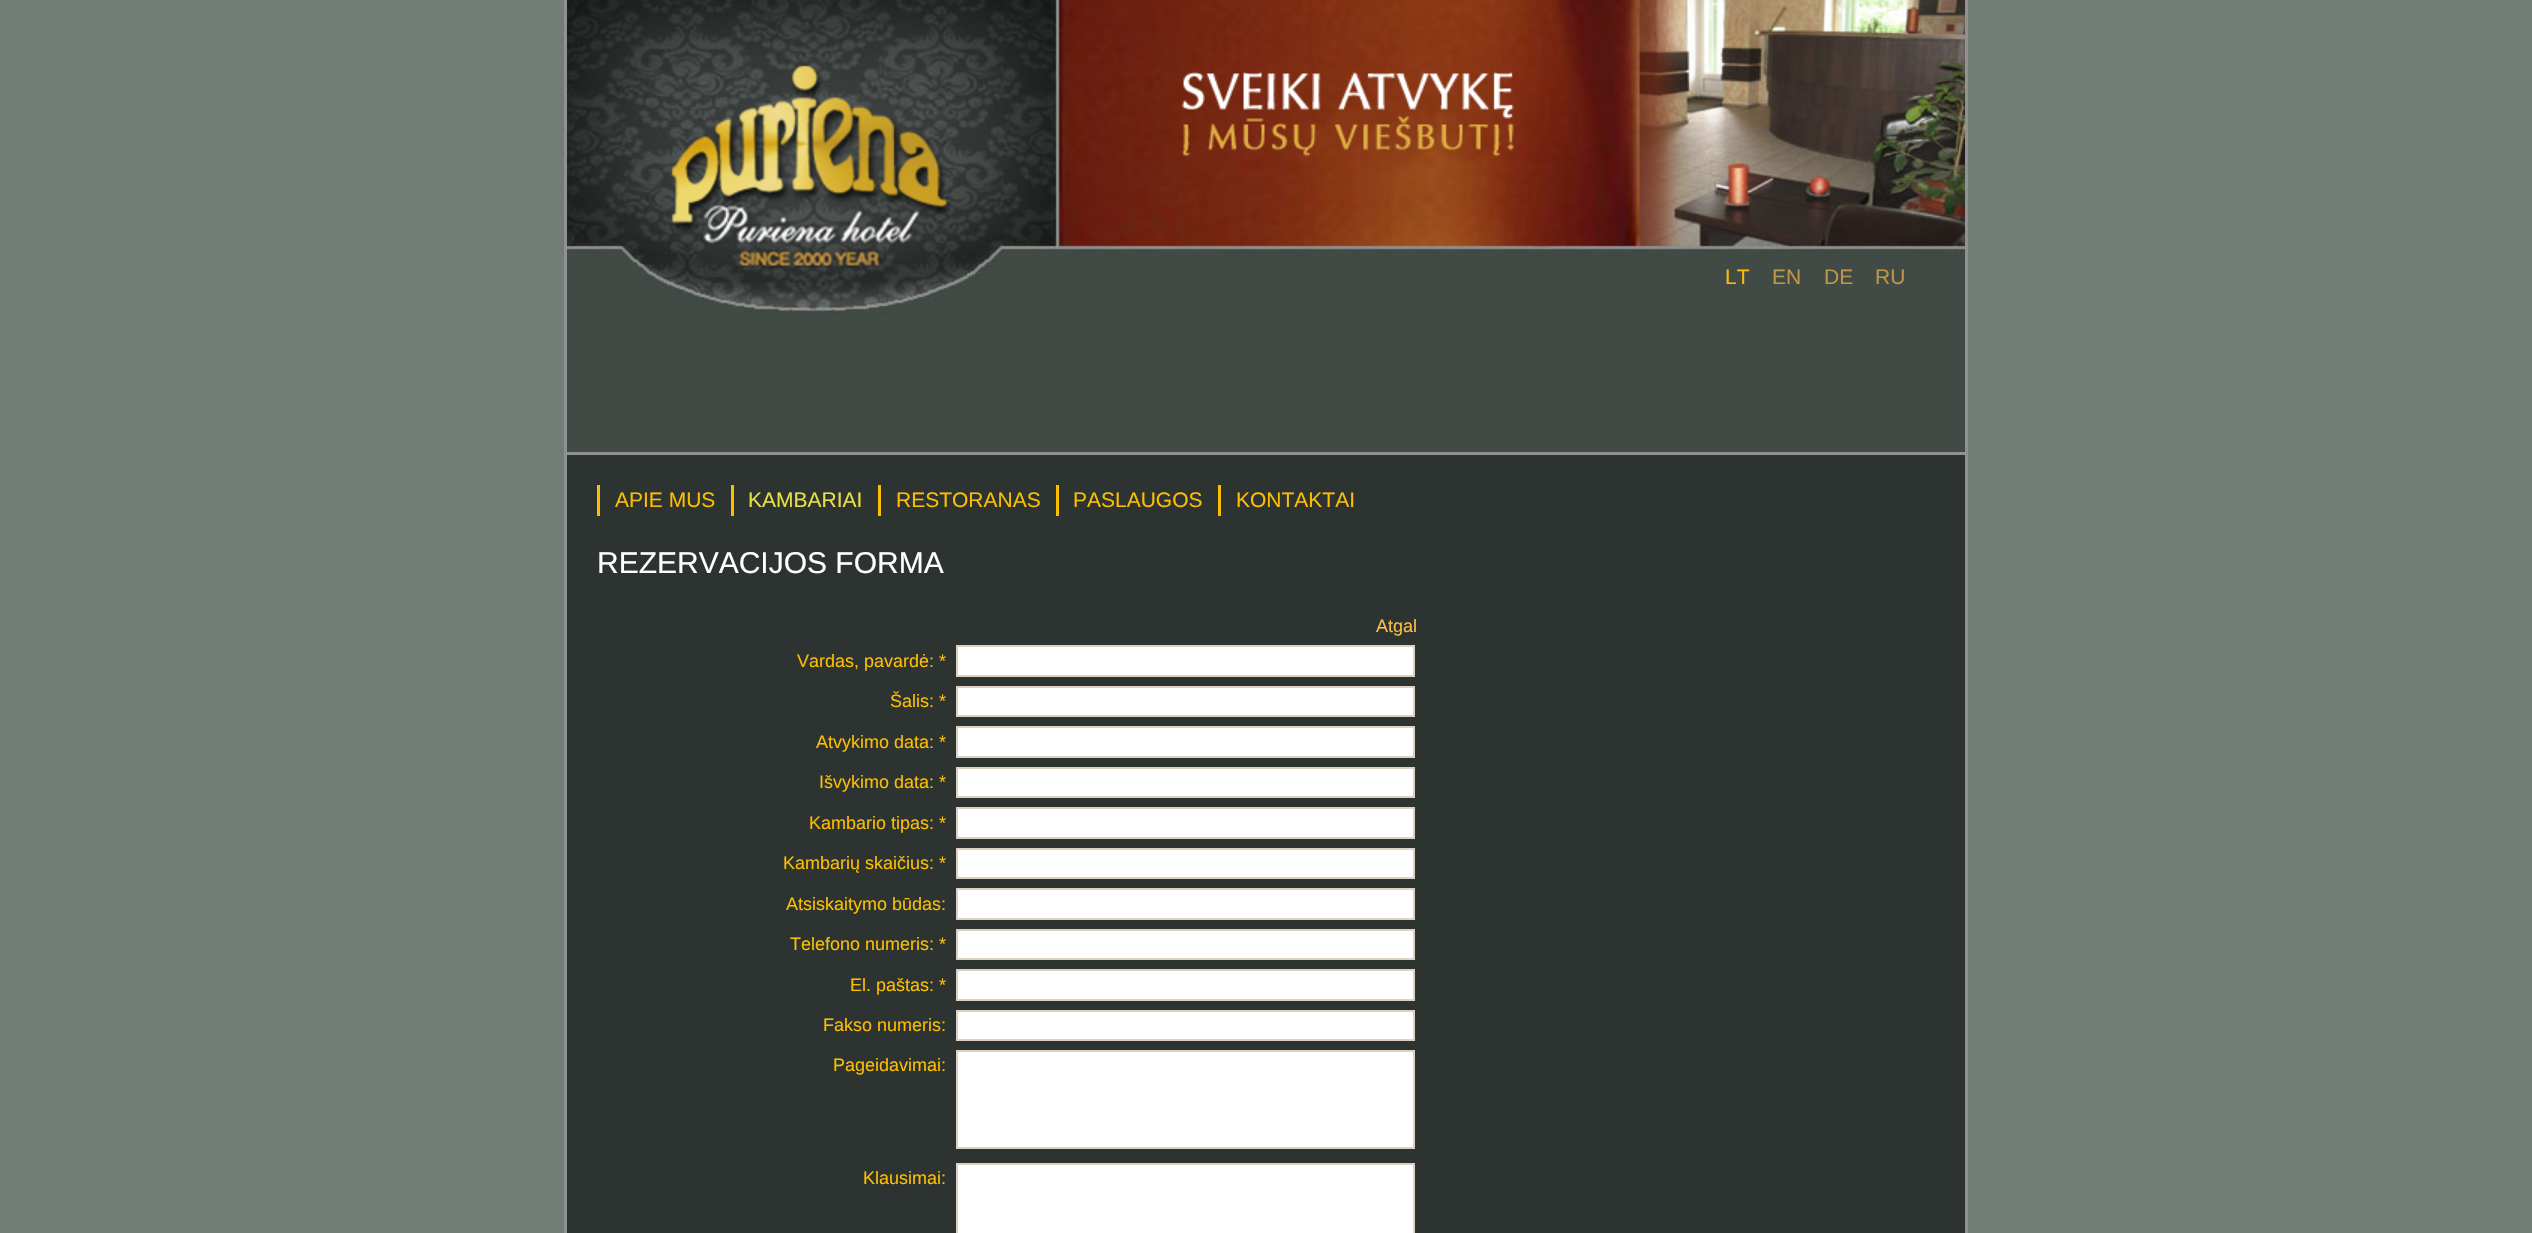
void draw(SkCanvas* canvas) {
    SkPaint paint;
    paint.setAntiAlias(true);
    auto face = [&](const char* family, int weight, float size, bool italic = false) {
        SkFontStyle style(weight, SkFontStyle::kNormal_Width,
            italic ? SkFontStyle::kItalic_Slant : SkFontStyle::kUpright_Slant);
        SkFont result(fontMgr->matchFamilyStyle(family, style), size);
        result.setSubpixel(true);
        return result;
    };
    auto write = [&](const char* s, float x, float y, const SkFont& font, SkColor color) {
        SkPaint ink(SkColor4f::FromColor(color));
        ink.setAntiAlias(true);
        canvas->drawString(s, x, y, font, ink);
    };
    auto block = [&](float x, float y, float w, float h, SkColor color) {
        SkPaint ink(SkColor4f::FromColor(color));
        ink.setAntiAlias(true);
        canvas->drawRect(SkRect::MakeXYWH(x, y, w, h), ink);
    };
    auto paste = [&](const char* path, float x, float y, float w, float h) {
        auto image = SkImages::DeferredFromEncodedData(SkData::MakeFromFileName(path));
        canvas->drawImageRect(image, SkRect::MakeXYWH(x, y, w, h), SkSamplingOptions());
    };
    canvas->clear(SkColorSetRGB(114, 125, 119));
    block(567, 315, 1398, 137, SkColorSetRGB(65, 74, 69));
    paste("pic1.png", 567, 0, 1398, 315);
    block(1965, 0, 3, 452, SkColorSetRGB(144, 146, 145));
    block(564, 0, 3, 452, SkColorSetRGB(144, 146, 145));
    paste("pic2.png", 671, 65, 282, 203);
    paste("pic3.png", 1181, 71, 333, 86);
    auto kFont1 = face("Liberation Sans", 400, 21);
    write("LT", 1725, 284, kFont1, SkColorSetRGB(251, 190, 3));
    write("EN", 1772, 284, kFont1, SkColorSetRGB(188, 151, 71));
    write("DE", 1824, 284, kFont1, SkColorSetRGB(188, 151, 71));
    write("RU", 1875, 284, kFont1, SkColorSetRGB(188, 151, 71));
    paint.setColor(SkColorSetRGB(45, 51, 49));
    canvas->drawRect(SkRect::MakeXYWH(565.5f, 453.5f, 1401, 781), paint);
    paint.setStyle(SkPaint::kStroke_Style);
    paint.setStrokeWidth(3);
    paint.setColor(SkColorSetRGB(144, 146, 145));
    canvas->drawRect(SkRect::MakeXYWH(565.5f, 453.5f, 1401, 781), paint);
    block(597, 485, 3, 31, SkColorSetRGB(251, 190, 3));
    write("APIE MUS", 615, 507, kFont1, SkColorSetRGB(251, 190, 3));
    block(731, 485, 3, 31, SkColorSetRGB(251, 190, 3));
    write("KAMBARIAI", 748, 507, kFont1, SkColorSetRGB(232, 223, 70));
    block(878, 485, 3, 31, SkColorSetRGB(251, 190, 3));
    write("RESTORANAS", 896, 507, kFont1, SkColorSetRGB(251, 190, 3));
    block(1056, 485, 3, 31, SkColorSetRGB(251, 190, 3));
    write("PASLAUGOS", 1073, 507, kFont1, SkColorSetRGB(251, 190, 3));
    block(1218, 485, 3, 31, SkColorSetRGB(251, 190, 3));
    write("KONTAKTAI", 1236, 507, kFont1, SkColorSetRGB(251, 190, 3));
    auto kFont2 = face("Liberation Sans", 400, 30);
    write("REZERVACIJOS FORMA", 597, 573, kFont2, SK_ColorWHITE);
    auto kFont3 = face("Liberation Sans", 400, 18);
    write("Atgal", 1376, 632, kFont3, SkColorSetRGB(251, 190, 70));
    write("Vardas, pavardė: *", 797, 667, kFont3, SkColorSetRGB(251, 190, 3));
    paint.setStyle(SkPaint::kFill_Style);
    paint.setColor(SK_ColorWHITE);
    canvas->drawRect(SkRect::MakeXYWH(957, 646, 457, 30), paint);
    paint.setStyle(SkPaint::kStroke_Style);
    paint.setStrokeWidth(2);
    paint.setColor(SkColorSetRGB(221, 209, 193));
    canvas->drawRect(SkRect::MakeXYWH(957, 646, 457, 30), paint);
    write("Šalis: *", 890, 707, kFont3, SkColorSetRGB(251, 190, 3));
    paint.setStyle(SkPaint::kFill_Style);
    paint.setColor(SK_ColorWHITE);
    canvas->drawRect(SkRect::MakeXYWH(957, 687, 457, 29), paint);
    paint.setStyle(SkPaint::kStroke_Style);
    paint.setColor(SkColorSetRGB(221, 209, 193));
    canvas->drawRect(SkRect::MakeXYWH(957, 687, 457, 29), paint);
    write("Atvykimo data: *", 816, 748, kFont3, SkColorSetRGB(251, 190, 3));
    paint.setStyle(SkPaint::kFill_Style);
    paint.setColor(SK_ColorWHITE);
    canvas->drawRect(SkRect::MakeXYWH(957, 727, 457, 30), paint);
    paint.setStyle(SkPaint::kStroke_Style);
    paint.setColor(SkColorSetRGB(221, 209, 193));
    canvas->drawRect(SkRect::MakeXYWH(957, 727, 457, 30), paint);
    write("Išvykimo data: *", 819, 788, kFont3, SkColorSetRGB(251, 190, 3));
    paint.setStyle(SkPaint::kFill_Style);
    paint.setColor(SK_ColorWHITE);
    canvas->drawRect(SkRect::MakeXYWH(957, 768, 457, 29), paint);
    paint.setStyle(SkPaint::kStroke_Style);
    paint.setColor(SkColorSetRGB(221, 209, 193));
    canvas->drawRect(SkRect::MakeXYWH(957, 768, 457, 29), paint);
    write("Kambario tipas: *", 809, 829, kFont3, SkColorSetRGB(251, 190, 3));
    paint.setStyle(SkPaint::kFill_Style);
    paint.setColor(SK_ColorWHITE);
    canvas->drawRect(SkRect::MakeXYWH(957, 808, 457, 30), paint);
    paint.setStyle(SkPaint::kStroke_Style);
    paint.setColor(SkColorSetRGB(221, 209, 193));
    canvas->drawRect(SkRect::MakeXYWH(957, 808, 457, 30), paint);
    write("Kambarių skaičius: *", 783, 869, kFont3, SkColorSetRGB(251, 190, 3));
    paint.setStyle(SkPaint::kFill_Style);
    paint.setColor(SK_ColorWHITE);
    canvas->drawRect(SkRect::MakeXYWH(957, 849, 457, 29), paint);
    paint.setStyle(SkPaint::kStroke_Style);
    paint.setColor(SkColorSetRGB(221, 209, 193));
    canvas->drawRect(SkRect::MakeXYWH(957, 849, 457, 29), paint);
    write("Atsiskaitymo būdas:", 786, 910, kFont3, SkColorSetRGB(251, 190, 3));
    paint.setStyle(SkPaint::kFill_Style);
    paint.setColor(SK_ColorWHITE);
    canvas->drawRect(SkRect::MakeXYWH(957, 889, 457, 30), paint);
    paint.setStyle(SkPaint::kStroke_Style);
    paint.setColor(SkColorSetRGB(221, 209, 193));
    canvas->drawRect(SkRect::MakeXYWH(957, 889, 457, 30), paint);
    write("Telefono numeris: *", 790, 950, kFont3, SkColorSetRGB(251, 190, 3));
    paint.setStyle(SkPaint::kFill_Style);
    paint.setColor(SK_ColorWHITE);
    canvas->drawRect(SkRect::MakeXYWH(957, 930, 457, 29), paint);
    paint.setStyle(SkPaint::kStroke_Style);
    paint.setColor(SkColorSetRGB(221, 209, 193));
    canvas->drawRect(SkRect::MakeXYWH(957, 930, 457, 29), paint);
    write("El. paštas: *", 850, 991, kFont3, SkColorSetRGB(251, 190, 3));
    paint.setStyle(SkPaint::kFill_Style);
    paint.setColor(SK_ColorWHITE);
    canvas->drawRect(SkRect::MakeXYWH(957, 970, 457, 30), paint);
    paint.setStyle(SkPaint::kStroke_Style);
    paint.setColor(SkColorSetRGB(221, 209, 193));
    canvas->drawRect(SkRect::MakeXYWH(957, 970, 457, 30), paint);
    write("Fakso numeris:", 823, 1031, kFont3, SkColorSetRGB(251, 190, 3));
    paint.setStyle(SkPaint::kFill_Style);
    paint.setColor(SK_ColorWHITE);
    canvas->drawRect(SkRect::MakeXYWH(957, 1011, 457, 29), paint);
    paint.setStyle(SkPaint::kStroke_Style);
    paint.setColor(SkColorSetRGB(221, 209, 193));
    canvas->drawRect(SkRect::MakeXYWH(957, 1011, 457, 29), paint);
    write("Pageidavimai:", 833, 1071, kFont3, SkColorSetRGB(251, 190, 3));
    paint.setStyle(SkPaint::kFill_Style);
    paint.setColor(SK_ColorWHITE);
    canvas->drawRect(SkRect::MakeXYWH(957, 1051, 457, 97), paint);
    paint.setStyle(SkPaint::kStroke_Style);
    paint.setColor(SkColorSetRGB(221, 209, 193));
    canvas->drawRect(SkRect::MakeXYWH(957, 1051, 457, 97), paint);
    write("Klausimai:", 863, 1184, kFont3, SkColorSetRGB(251, 190, 3));
    paint.setStyle(SkPaint::kFill_Style);
    paint.setColor(SK_ColorWHITE);
    canvas->drawRect(SkRect::MakeXYWH(957, 1164, 457, 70), paint);
    paint.setStyle(SkPaint::kStroke_Style);
    paint.setColor(SkColorSetRGB(221, 209, 193));
    canvas->drawRect(SkRect::MakeXYWH(957, 1164, 457, 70), paint);
}
